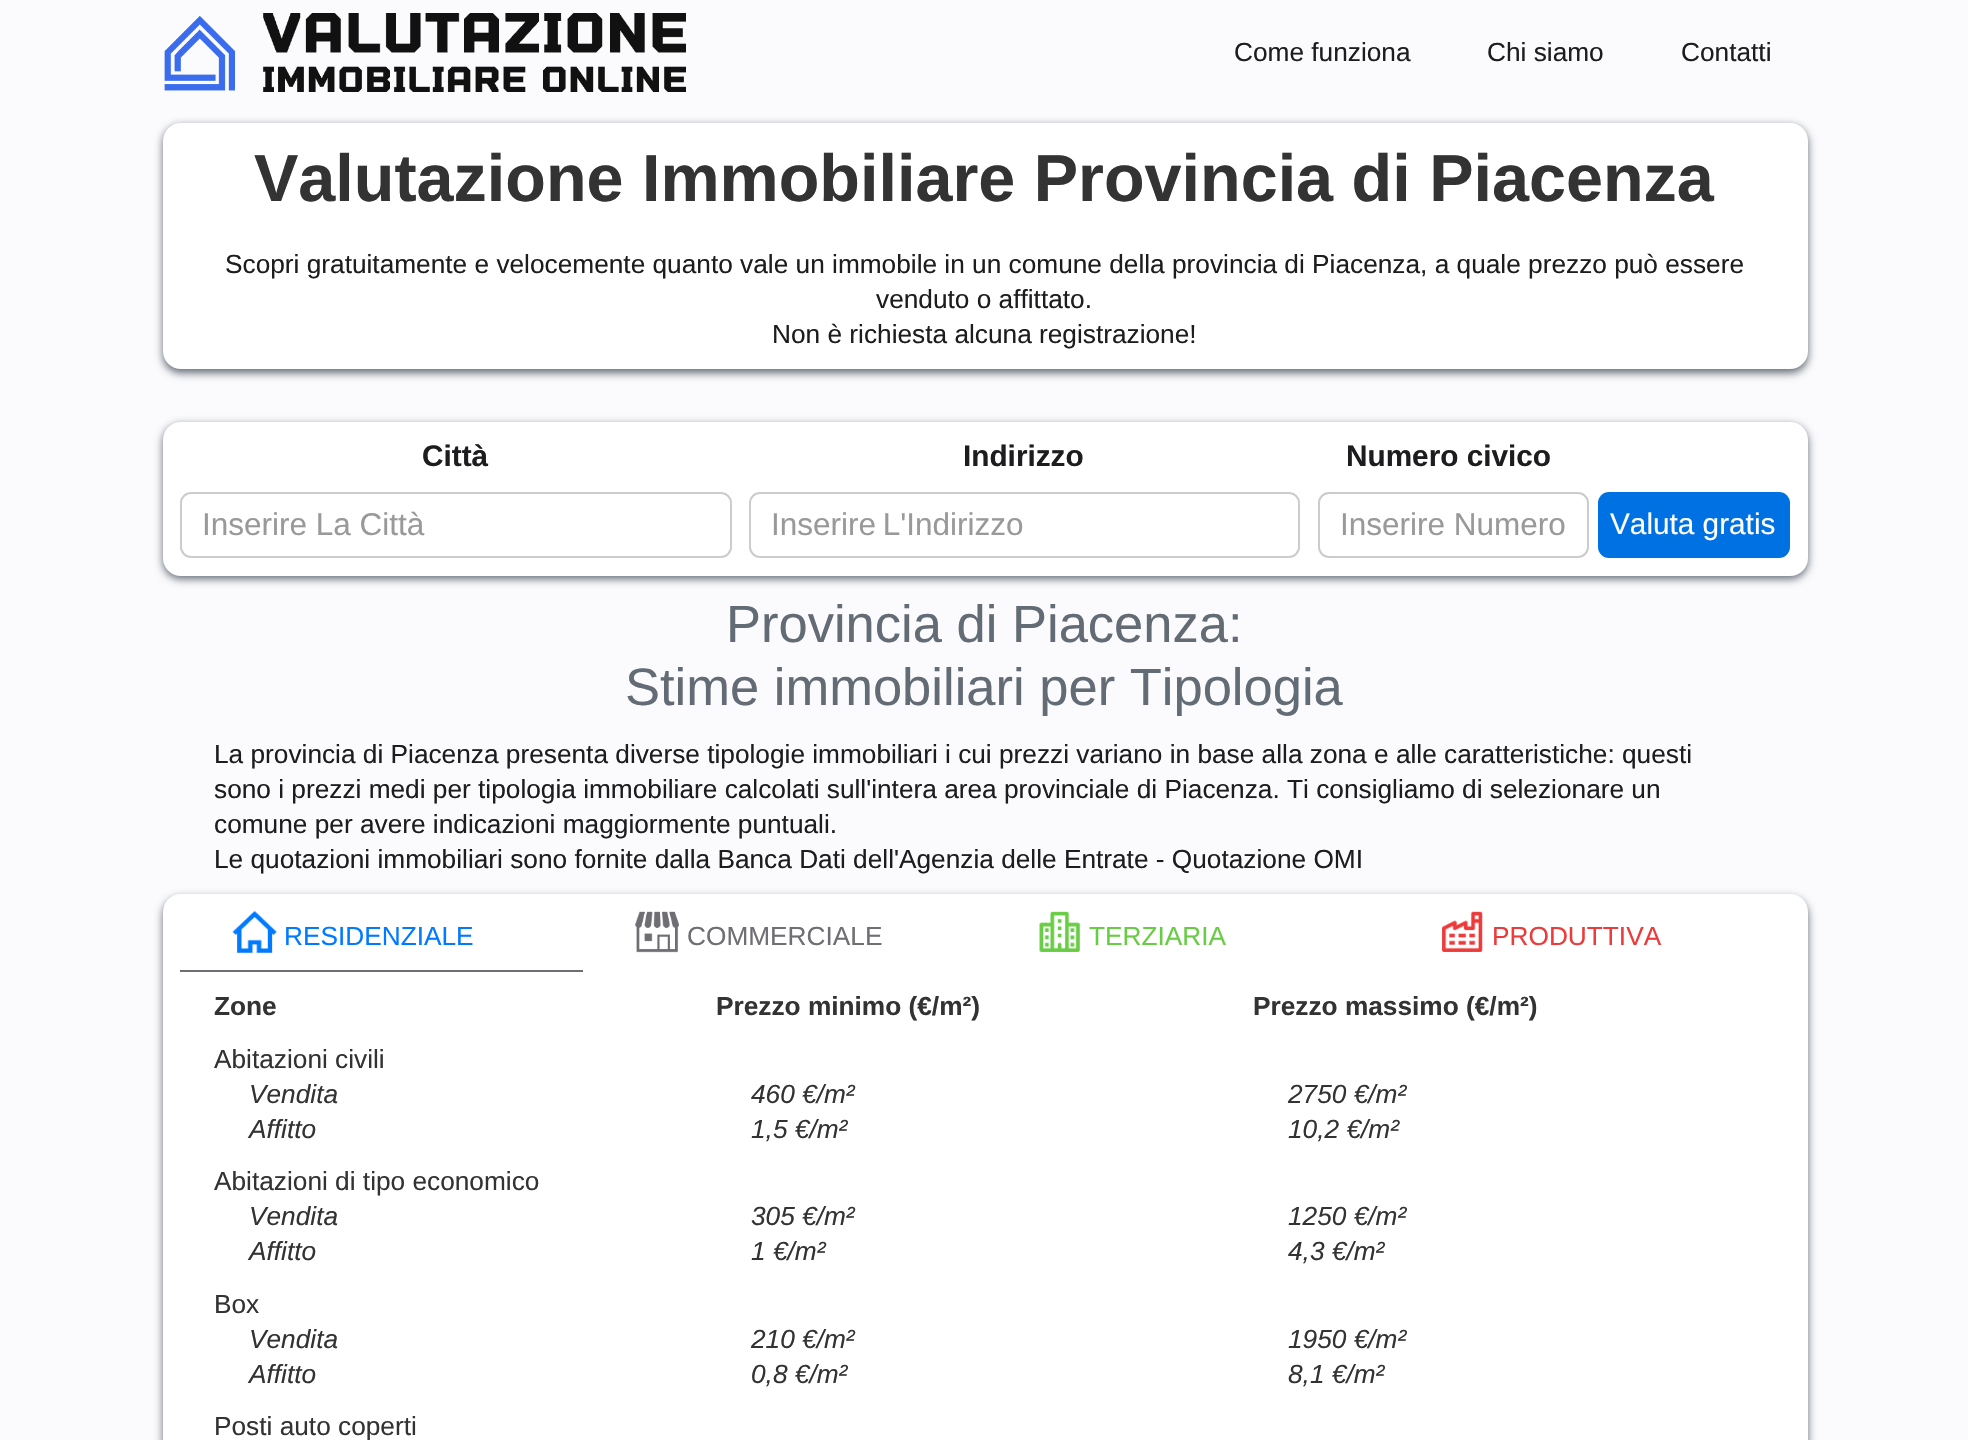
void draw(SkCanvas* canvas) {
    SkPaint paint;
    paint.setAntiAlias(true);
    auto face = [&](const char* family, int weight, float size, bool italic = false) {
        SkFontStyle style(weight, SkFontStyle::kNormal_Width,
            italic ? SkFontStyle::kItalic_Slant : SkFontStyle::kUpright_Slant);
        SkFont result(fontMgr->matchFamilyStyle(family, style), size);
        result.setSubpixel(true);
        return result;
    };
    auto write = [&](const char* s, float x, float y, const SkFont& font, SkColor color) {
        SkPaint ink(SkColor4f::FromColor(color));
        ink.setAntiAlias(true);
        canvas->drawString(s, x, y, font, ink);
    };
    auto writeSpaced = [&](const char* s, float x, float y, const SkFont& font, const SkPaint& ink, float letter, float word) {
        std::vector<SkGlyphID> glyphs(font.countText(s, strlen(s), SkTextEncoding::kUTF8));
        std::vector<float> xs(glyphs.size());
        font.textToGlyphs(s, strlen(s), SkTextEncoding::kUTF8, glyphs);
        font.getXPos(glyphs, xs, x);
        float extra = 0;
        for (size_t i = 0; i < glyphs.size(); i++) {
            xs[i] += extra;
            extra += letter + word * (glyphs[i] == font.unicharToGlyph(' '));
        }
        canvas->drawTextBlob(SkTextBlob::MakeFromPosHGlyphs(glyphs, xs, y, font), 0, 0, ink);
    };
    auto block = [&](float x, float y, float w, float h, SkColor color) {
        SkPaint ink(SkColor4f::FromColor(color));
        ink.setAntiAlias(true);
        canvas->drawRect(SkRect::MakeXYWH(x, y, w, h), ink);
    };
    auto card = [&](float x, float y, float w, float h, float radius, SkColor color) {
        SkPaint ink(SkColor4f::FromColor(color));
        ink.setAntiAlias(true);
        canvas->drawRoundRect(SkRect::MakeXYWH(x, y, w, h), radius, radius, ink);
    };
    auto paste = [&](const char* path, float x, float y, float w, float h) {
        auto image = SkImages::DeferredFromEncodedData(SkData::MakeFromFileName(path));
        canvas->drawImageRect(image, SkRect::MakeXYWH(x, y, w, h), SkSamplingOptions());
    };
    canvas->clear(SkColorSetRGB(251, 251, 253));
    paste("pic1.png", 164, 13, 522, 79);
    auto kFont1 = face("Liberation Sans", 400, 26.25f);
    write("Come funziona", 1234, 61, kFont1, SkColorSetRGB(29, 29, 31));
    write("Chi siamo", 1487, 61, kFont1, SkColorSetRGB(29, 29, 31));
    write("Contatti", 1681, 61, kFont1, SkColorSetRGB(29, 29, 31));
    paint.setColor(SkColorSetRGB(99, 107, 117));
    paint.setMaskFilter(SkMaskFilter::MakeBlur(kNormal_SkBlurStyle, 4.5f));
    canvas->drawRoundRect(SkRect::MakeXYWH(163, 126, 1645, 247), 18, 18, paint);
    paint.setMaskFilter(nullptr);
    card(163, 123, 1645, 246, 18, SK_ColorWHITE);
    auto kFont2 = face("Liberation Sans", 700, 66.5f);
    write("Valutazione Immobiliare Provincia di Piacenza", 254, 201, kFont2, SkColorSetRGB(51, 51, 51));
    write("Scopri gratuitamente e velocemente quanto vale un immobile in un comune della provincia di Piacenza, a quale prezzo può essere", 225, 273, kFont1, SkColorSetRGB(29, 29, 31));
    write("venduto o affittato.", 876, 308, kFont1, SkColorSetRGB(29, 29, 31));
    write("Non è richiesta alcuna registrazione!", 772, 343, kFont1, SkColorSetRGB(29, 29, 31));
    paint.setMaskFilter(SkMaskFilter::MakeBlur(kNormal_SkBlurStyle, 4.5f));
    canvas->drawRoundRect(SkRect::MakeXYWH(163, 425, 1645, 154), 18, 18, paint);
    paint.setMaskFilter(nullptr);
    card(163, 422, 1645, 154, 18, SK_ColorWHITE);
    auto kFont3 = face("Liberation Sans", 700, 29.75f);
    write("Città", 422, 466, kFont3, SkColorSetRGB(29, 29, 31));
    paint.setStyle(SkPaint::kStroke_Style);
    paint.setStrokeWidth(2);
    paint.setColor(SkColorSetRGB(204, 204, 204));
    canvas->drawRoundRect(SkRect::MakeXYWH(181, 493, 550, 64), 10, 10, paint);
    auto kFont4 = face("Liberation Sans", 400, 31.5f);
    write("Inserire La Città", 202, 535, kFont4, SkColorSetRGB(153, 153, 153));
    write("Indirizzo", 963, 466, kFont3, SkColorSetRGB(29, 29, 31));
    canvas->drawRoundRect(SkRect::MakeXYWH(750, 493, 549, 64), 10, 10, paint);
    paint.setStyle(SkPaint::kFill_Style);
    paint.setColor(SkColorSetRGB(153, 153, 153));
    writeSpaced("Inserire L'Indirizzo", 771, 535, kFont4, paint, 0, -2);
    write("Numero civico", 1346, 466, kFont3, SkColorSetRGB(29, 29, 31));
    paint.setStyle(SkPaint::kStroke_Style);
    paint.setColor(SkColorSetRGB(204, 204, 204));
    canvas->drawRoundRect(SkRect::MakeXYWH(1319, 493, 269, 64), 10, 10, paint);
    write("Inserire Numero", 1340, 535, kFont4, SkColorSetRGB(153, 153, 153));
    card(1598, 492, 192, 66, 11, SkColorSetRGB(0, 113, 227));
    auto kFont5 = face("Liberation Sans", 400, 29.75f);
    write("Valuta gratis", 1610, 534, kFont5, SK_ColorWHITE);
    auto kFont6 = face("Liberation Sans", 400, 52.5f);
    write("Provincia di Piacenza:", 726, 642, kFont6, SkColorSetRGB(99, 107, 117));
    write("Stime immobiliari per Tipologia", 625, 705, kFont6, SkColorSetRGB(99, 107, 117));
    write("La provincia di Piacenza presenta diverse tipologie immobiliari i cui prezzi variano in base alla zona e alle caratteristiche: questi", 214, 763, kFont1, SkColorSetRGB(29, 29, 31));
    write("sono i prezzi medi per tipologia immobiliare calcolati sull'intera area provinciale di Piacenza. Ti consigliamo di selezionare un", 214, 798, kFont1, SkColorSetRGB(29, 29, 31));
    write("comune per avere indicazioni maggiormente puntuali.", 214, 833, kFont1, SkColorSetRGB(29, 29, 31));
    write("Le quotazioni immobiliari sono fornite dalla Banca Dati dell'Agenzia delle Entrate - Quotazione OMI", 214, 868, kFont1, SkColorSetRGB(29, 29, 31));
    paint.setStyle(SkPaint::kFill_Style);
    paint.setColor(SkColorSetRGB(99, 107, 117));
    paint.setMaskFilter(SkMaskFilter::MakeBlur(kNormal_SkBlurStyle, 4.5f));
    canvas->drawRoundRect(SkRect::MakeXYWH(163, 898, 1645, 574), 18, 18, paint);
    paint.setMaskFilter(nullptr);
    card(163, 894, 1645, 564, 18, SK_ColorWHITE);
    block(180, 970, 403, 2, SkColorSetRGB(110, 110, 115));
    paste("pic2.png", 232, 910, 45, 43);
    write("RESIDENZIALE", 284, 945, kFont1, SkColorSetRGB(0, 122, 255));
    paste("pic3.png", 635, 911, 44, 42);
    write("COMMERCIALE", 687, 945, kFont1, SkColorSetRGB(110, 110, 115));
    paste("pic4.png", 1039, 911, 41, 41);
    write("TERZIARIA", 1089, 945, kFont1, SkColorSetRGB(104, 204, 69));
    paste("pic5.png", 1442, 911, 41, 41);
    write("PRODUTTIVA", 1492, 945, kFont1, SkColorSetRGB(237, 58, 58));
    auto kFont7 = face("Liberation Sans", 700, 26.25f);
    write("Zone", 214, 1015, kFont7, SkColorSetRGB(51, 51, 51));
    write("Prezzo minimo (€/m²)", 716, 1015, kFont7, SkColorSetRGB(51, 51, 51));
    write("Prezzo massimo (€/m²)", 1253, 1015, kFont7, SkColorSetRGB(51, 51, 51));
    write("Abitazioni civili", 214, 1068, kFont1, SkColorSetRGB(51, 51, 51));
    auto kFont8 = face("Liberation Sans", 400, 26.25f, true);
    write("Vendita", 249, 1103, kFont8, SkColorSetRGB(51, 51, 51));
    write("460 €/m²", 751, 1103, kFont8, SkColorSetRGB(51, 51, 51));
    write("2750 €/m²", 1288, 1103, kFont8, SkColorSetRGB(51, 51, 51));
    write("Affitto", 249, 1138, kFont8, SkColorSetRGB(51, 51, 51));
    write("1,5 €/m²", 751, 1138, kFont8, SkColorSetRGB(51, 51, 51));
    write("10,2 €/m²", 1288, 1138, kFont8, SkColorSetRGB(51, 51, 51));
    write("Abitazioni di tipo economico", 214, 1190, kFont1, SkColorSetRGB(51, 51, 51));
    write("Vendita", 249, 1225, kFont8, SkColorSetRGB(51, 51, 51));
    write("305 €/m²", 751, 1225, kFont8, SkColorSetRGB(51, 51, 51));
    write("1250 €/m²", 1288, 1225, kFont8, SkColorSetRGB(51, 51, 51));
    write("Affitto", 249, 1260, kFont8, SkColorSetRGB(51, 51, 51));
    write("1 €/m²", 751, 1260, kFont8, SkColorSetRGB(51, 51, 51));
    write("4,3 €/m²", 1288, 1260, kFont8, SkColorSetRGB(51, 51, 51));
    write("Box", 214, 1313, kFont1, SkColorSetRGB(51, 51, 51));
    write("Vendita", 249, 1348, kFont8, SkColorSetRGB(51, 51, 51));
    write("210 €/m²", 751, 1348, kFont8, SkColorSetRGB(51, 51, 51));
    write("1950 €/m²", 1288, 1348, kFont8, SkColorSetRGB(51, 51, 51));
    write("Affitto", 249, 1383, kFont8, SkColorSetRGB(51, 51, 51));
    write("0,8 €/m²", 751, 1383, kFont8, SkColorSetRGB(51, 51, 51));
    write("8,1 €/m²", 1288, 1383, kFont8, SkColorSetRGB(51, 51, 51));
    write("Posti auto coperti", 214, 1435, kFont1, SkColorSetRGB(51, 51, 51));
}
